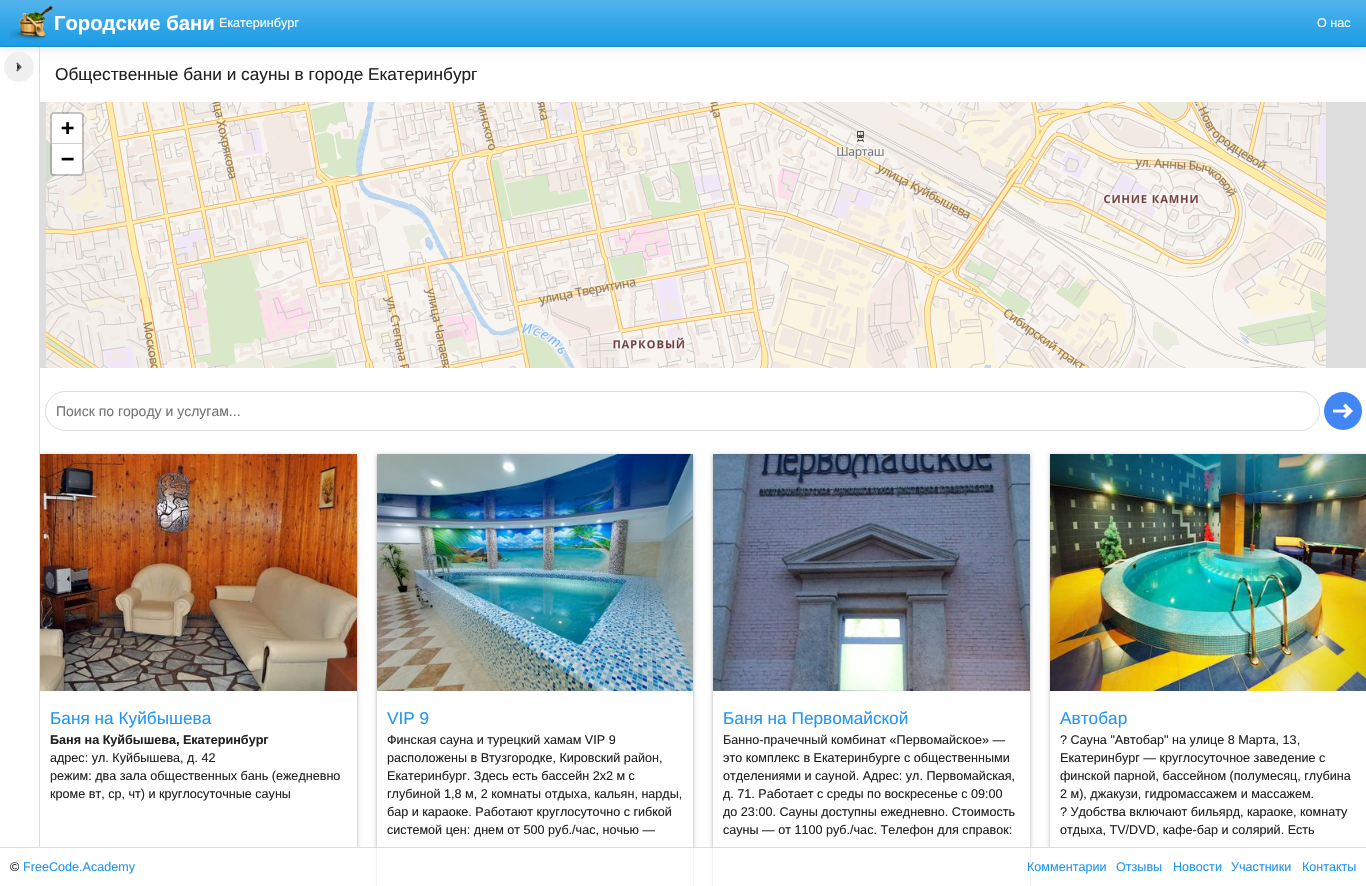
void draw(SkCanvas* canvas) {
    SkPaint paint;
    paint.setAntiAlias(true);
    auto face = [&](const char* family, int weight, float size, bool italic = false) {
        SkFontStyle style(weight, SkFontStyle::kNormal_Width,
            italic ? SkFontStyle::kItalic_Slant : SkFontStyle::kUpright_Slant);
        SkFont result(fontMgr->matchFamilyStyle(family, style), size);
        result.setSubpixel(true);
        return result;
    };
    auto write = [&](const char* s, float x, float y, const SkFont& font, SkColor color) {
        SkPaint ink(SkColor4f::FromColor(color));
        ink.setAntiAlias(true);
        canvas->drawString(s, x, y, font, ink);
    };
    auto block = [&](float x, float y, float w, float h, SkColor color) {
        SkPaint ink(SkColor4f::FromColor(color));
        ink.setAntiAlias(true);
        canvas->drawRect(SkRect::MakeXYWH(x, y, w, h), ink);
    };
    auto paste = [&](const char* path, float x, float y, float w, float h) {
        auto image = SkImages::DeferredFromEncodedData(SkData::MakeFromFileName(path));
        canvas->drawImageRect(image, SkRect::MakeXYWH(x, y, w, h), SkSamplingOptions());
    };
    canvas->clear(SK_ColorWHITE);
    paint.setColor(SkColorSetARGB(26, 0, 0, 0));
    paint.setMaskFilter(SkMaskFilter::MakeBlur(kNormal_SkBlurStyle, 5));
    canvas->drawRect(SkRect::MakeXYWH(0, 1, 1366, 47), paint);
    paint.setMaskFilter(nullptr);
    {
        const SkColor colors[] = {SkColorSetRGB(84, 180, 235), SkColorSetRGB(47, 164, 231), SkColorSetRGB(29, 156, 229)};
        const float stops[] = {0, 0.6f, 1};
        const SkPoint ends[] = {{683, 0}, {683, 46}};
        paint.setShader(SkGradientShader::MakeLinear(ends, colors, stops, 3, SkTileMode::kClamp));
        paint.setAlpha(255);
    }
    canvas->drawRect(SkRect::MakeXYWH(0, 0, 1366, 46), paint);
    block(0, 46, 1366, 1, SkColorSetRGB(23, 138, 204));
    paste("pic1.png", 9, 5, 45, 35);
    auto kFont1 = face("Liberation Sans", 700, 20.25f);
    write("Городские бани", 54, 30, kFont1, SK_ColorWHITE);
    auto kFont2 = face("Liberation Sans", 400, 12.6f);
    write("Екатеринбург", 219, 27, kFont2, SK_ColorWHITE);
    write("О нас", 1317, 27, kFont2, SK_ColorWHITE);
    block(0, 847, 1366, 1, SkColorSetRGB(221, 221, 221));
    canvas->save();
    canvas->clipRect(SkRect::MakeXYWH(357, 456, 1, 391));
    paint.setShader(nullptr);
    paint.setColor(SkColorSetARGB(36, 0, 0, 0));
    paint.setMaskFilter(SkMaskFilter::MakeBlur(kNormal_SkBlurStyle, 1));
    canvas->drawRect(SkRect::MakeXYWH(40, 456, 317, 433), paint);
    paint.setMaskFilter(nullptr);
    canvas->restore();
    canvas->save();
    canvas->clipRect(SkRect::MakeXYWH(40, 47, 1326, 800));
    canvas->clipPath(SkPathBuilder(SkPathFillType::kEvenOdd).moveTo(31, 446).lineTo(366, 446).lineTo(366, 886).lineTo(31, 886).close().moveTo(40, 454).lineTo(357, 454).lineTo(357, 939).lineTo(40, 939).close().detach(), true);
    paint.setColor(SkColorSetARGB(51, 0, 0, 0));
    paint.setMaskFilter(SkMaskFilter::MakeBlur(kNormal_SkBlurStyle, 2.5f));
    canvas->drawRect(SkRect::MakeXYWH(40, 455, 317, 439), paint);
    paint.setMaskFilter(nullptr);
    canvas->restore();
    block(39, 47, 1, 800, SkColorSetRGB(221, 221, 221));
    paint.setColor(SkColorSetRGB(240, 240, 240));
    canvas->drawCircle(19, 67, 15, paint);
    paste("pic2.png", 16, 62, 6, 10);
    auto kFont3 = face("Liberation Sans", 400, 17.25f);
    write("Общественные бани и сауны в городе Екатеринбург", 55, 80, kFont3, SkColorSetRGB(33, 33, 33));
    block(40, 102, 1326, 266, SkColorSetRGB(221, 221, 221));
    paste("pic3.png", 46, 102, 256, 129);
    paste("pic4.png", 302, 102, 256, 129);
    paste("pic5.png", 558, 102, 256, 129);
    paste("pic6.png", 814, 102, 256, 129);
    paste("pic7.png", 1070, 102, 256, 129);
    paste("pic8.png", 46, 231, 256, 137);
    paste("pic9.png", 302, 231, 256, 137);
    paste("pic10.png", 558, 231, 256, 137);
    paste("pic11.png", 814, 231, 256, 137);
    paste("pic12.png", 1070, 231, 256, 137);
    paint.setStyle(SkPaint::kStroke_Style);
    paint.setStrokeWidth(2);
    paint.setColor(SkColorSetARGB(51, 0, 0, 0));
    canvas->drawRoundRect(SkRect::MakeXYWH(51, 113, 32, 62), 3, 3, paint);
    paint.setStyle(SkPaint::kFill_Style);
    paint.setColor(SK_ColorWHITE);
    canvas->drawPath(SkPathBuilder().moveTo(54, 114).lineTo(80, 114).cubicTo(81, 114, 82, 115, 82, 116).lineTo(82, 144).lineTo(52, 144).lineTo(52, 116).cubicTo(52, 115, 53, 114, 54, 114).close().detach(), paint);
    block(52, 143, 30, 1, SkColorSetRGB(204, 204, 204));
    auto kFont4 = face("DejaVu Sans Mono", 700, 22);
    write("+", 61, 135, kFont4, SK_ColorBLACK);
    canvas->drawPath(SkPathBuilder().moveTo(52, 144).lineTo(82, 144).lineTo(82, 172).cubicTo(82, 173, 81, 174, 80, 174).lineTo(54, 174).cubicTo(53, 174, 52, 173, 52, 172).close().detach(), paint);
    write("−", 61, 166, kFont4, SK_ColorBLACK);
    paint.setStyle(SkPaint::kStroke_Style);
    paint.setStrokeWidth(1);
    paint.setColor(SkColorSetRGB(221, 221, 221));
    canvas->drawRoundRect(SkRect::MakeXYWH(45.5f, 391.5f, 1274, 39), 19.5f, 19.5f, paint);
    auto kFont5 = face("Liberation Sans", 400, 14);
    write("Поиск по городу и услугам...", 56, 416, kFont5, SkColorSetRGB(117, 117, 117));
    paint.setStyle(SkPaint::kFill_Style);
    paint.setColor(SkColorSetRGB(66, 133, 244));
    canvas->drawCircle(1343, 411, 19, paint);
    paste("pic13.png", 1333, 403, 20, 16);
    paste("pic14.png", 40, 454, 317, 237);
    write("Баня на Куйбышева", 50, 724, kFont3, SkColorSetRGB(33, 150, 243));
    auto kFont6 = face("Liberation Sans", 700, 12.6f);
    write("Баня на Куйбышева, Екатеринбург", 50, 744, kFont6, SkColorSetRGB(33, 33, 33));
    write("адрес: ул. Куйбышева, д. 42", 50, 762, kFont2, SkColorSetRGB(33, 33, 33));
    write("режим: два зала общественных бань (ежедневно", 50, 780, kFont2, SkColorSetRGB(33, 33, 33));
    write("кроме вт, ср, чт) и круглосуточные сауны", 50, 798, kFont2, SkColorSetRGB(33, 33, 33));
    canvas->save();
    canvas->clipPath(SkPathBuilder(SkPathFillType::kEvenOdd).moveTo(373, 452).lineTo(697, 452).lineTo(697, 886).lineTo(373, 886).close().moveTo(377, 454).lineTo(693, 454).lineTo(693, 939).lineTo(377, 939).close().detach(), true);
    paint.setColor(SkColorSetARGB(36, 0, 0, 0));
    paint.setMaskFilter(SkMaskFilter::MakeBlur(kNormal_SkBlurStyle, 1));
    canvas->drawRect(SkRect::MakeXYWH(377, 456, 316, 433), paint);
    paint.setMaskFilter(nullptr);
    canvas->restore();
    canvas->save();
    canvas->clipRect(SkRect::MakeXYWH(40, 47, 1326, 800));
    canvas->clipPath(SkPathBuilder(SkPathFillType::kEvenOdd).moveTo(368, 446).lineTo(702, 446).lineTo(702, 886).lineTo(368, 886).close().moveTo(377, 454).lineTo(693, 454).lineTo(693, 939).lineTo(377, 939).close().detach(), true);
    paint.setColor(SkColorSetARGB(51, 0, 0, 0));
    paint.setMaskFilter(SkMaskFilter::MakeBlur(kNormal_SkBlurStyle, 2.5f));
    canvas->drawRect(SkRect::MakeXYWH(377, 455, 316, 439), paint);
    paint.setMaskFilter(nullptr);
    canvas->restore();
    paste("pic15.png", 377, 454, 316, 237);
    write("VIP 9", 387, 724, kFont3, SkColorSetRGB(33, 150, 243));
    write("Финская сауна и турецкий хамам VIP 9", 387, 744, kFont2, SkColorSetRGB(33, 33, 33));
    write("расположены в Втузгородке, Кировский район,", 387, 762, kFont2, SkColorSetRGB(33, 33, 33));
    write("Екатеринбург. Здесь есть бассейн 2х2 м с", 387, 780, kFont2, SkColorSetRGB(33, 33, 33));
    write("глубиной 1,8 м, 2 комнаты отдыха, кальян, нарды,", 387, 798, kFont2, SkColorSetRGB(33, 33, 33));
    write("бар и караоке. Работают круглосуточно с гибкой", 387, 816, kFont2, SkColorSetRGB(33, 33, 33));
    write("системой цен: днем от 500 руб./час, ночью —", 387, 834, kFont2, SkColorSetRGB(33, 33, 33));
    canvas->save();
    canvas->clipPath(SkPathBuilder(SkPathFillType::kEvenOdd).moveTo(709, 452).lineTo(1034, 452).lineTo(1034, 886).lineTo(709, 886).close().moveTo(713, 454).lineTo(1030, 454).lineTo(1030, 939).lineTo(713, 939).close().detach(), true);
    paint.setColor(SkColorSetARGB(36, 0, 0, 0));
    paint.setMaskFilter(SkMaskFilter::MakeBlur(kNormal_SkBlurStyle, 1));
    canvas->drawRect(SkRect::MakeXYWH(713, 456, 317, 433), paint);
    paint.setMaskFilter(nullptr);
    canvas->restore();
    canvas->save();
    canvas->clipRect(SkRect::MakeXYWH(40, 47, 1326, 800));
    canvas->clipPath(SkPathBuilder(SkPathFillType::kEvenOdd).moveTo(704, 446).lineTo(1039, 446).lineTo(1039, 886).lineTo(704, 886).close().moveTo(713, 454).lineTo(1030, 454).lineTo(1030, 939).lineTo(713, 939).close().detach(), true);
    paint.setColor(SkColorSetARGB(51, 0, 0, 0));
    paint.setMaskFilter(SkMaskFilter::MakeBlur(kNormal_SkBlurStyle, 2.5f));
    canvas->drawRect(SkRect::MakeXYWH(713, 455, 317, 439), paint);
    paint.setMaskFilter(nullptr);
    canvas->restore();
    paste("pic16.png", 713, 454, 317, 237);
    write("Баня на Первомайской", 723, 724, kFont3, SkColorSetRGB(33, 150, 243));
    write("Банно-прачечный комбинат «Первомайское» —", 723, 744, kFont2, SkColorSetRGB(33, 33, 33));
    write("это комплекс в Екатеринбурге с общественными", 723, 762, kFont2, SkColorSetRGB(33, 33, 33));
    write("отделениями и сауной. Адрес: ул. Первомайская,", 723, 780, kFont2, SkColorSetRGB(33, 33, 33));
    write("д. 71. Работает с среды по воскресенье с 09:00", 723, 798, kFont2, SkColorSetRGB(33, 33, 33));
    write("до 23:00. Сауны доступны ежедневно. Стоимость", 723, 816, kFont2, SkColorSetRGB(33, 33, 33));
    write("сауны — от 1100 руб./час. Телефон для справок:", 723, 834, kFont2, SkColorSetRGB(33, 33, 33));
    canvas->save();
    canvas->clipRect(SkRect::MakeXYWH(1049, 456, 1, 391));
    paint.setColor(SkColorSetARGB(36, 0, 0, 0));
    paint.setMaskFilter(SkMaskFilter::MakeBlur(kNormal_SkBlurStyle, 1));
    canvas->drawRect(SkRect::MakeXYWH(1050, 456, 316, 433), paint);
    paint.setMaskFilter(nullptr);
    canvas->restore();
    canvas->save();
    canvas->clipRect(SkRect::MakeXYWH(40, 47, 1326, 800));
    canvas->clipPath(SkPathBuilder(SkPathFillType::kEvenOdd).moveTo(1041, 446).lineTo(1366, 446).lineTo(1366, 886).lineTo(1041, 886).close().moveTo(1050, 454).lineTo(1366, 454).lineTo(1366, 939).lineTo(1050, 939).close().detach(), true);
    paint.setColor(SkColorSetARGB(51, 0, 0, 0));
    paint.setMaskFilter(SkMaskFilter::MakeBlur(kNormal_SkBlurStyle, 2.5f));
    canvas->drawRect(SkRect::MakeXYWH(1050, 455, 316, 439), paint);
    paint.setMaskFilter(nullptr);
    canvas->restore();
    paste("pic17.png", 1050, 454, 316, 237);
    write("Автобар", 1060, 724, kFont3, SkColorSetRGB(33, 150, 243));
    write("? Сауна \"Автобар\" на улице 8 Марта, 13,", 1060, 744, kFont2, SkColorSetRGB(33, 33, 33));
    write("Екатеринбург — круглосуточное заведение с", 1060, 762, kFont2, SkColorSetRGB(33, 33, 33));
    write("финской парной, бассейном (полумесяц, глубина", 1060, 780, kFont2, SkColorSetRGB(33, 33, 33));
    write("2 м), джакузи, гидромассажем и массажем.", 1060, 798, kFont2, SkColorSetRGB(33, 33, 33));
    write("? Удобства включают бильярд, караоке, комнату", 1060, 816, kFont2, SkColorSetRGB(33, 33, 33));
    write("отдыха, TV/DVD, кафе-бар и солярий. Есть", 1060, 834, kFont2, SkColorSetRGB(33, 33, 33));
    write("©", 10, 871, kFont2, SkColorSetRGB(33, 33, 33));
    write("FreeCode.Academy", 23, 871, kFont2, SkColorSetRGB(33, 150, 243));
    write("Комментарии", 1027, 871, kFont2, SkColorSetRGB(33, 150, 243));
    write("Отзывы", 1116, 871, kFont2, SkColorSetRGB(33, 150, 243));
    write("Новости", 1173, 871, kFont2, SkColorSetRGB(33, 150, 243));
    write("Участники", 1231, 871, kFont2, SkColorSetRGB(33, 150, 243));
    write("Контакты", 1302, 871, kFont2, SkColorSetRGB(33, 150, 243));
}
